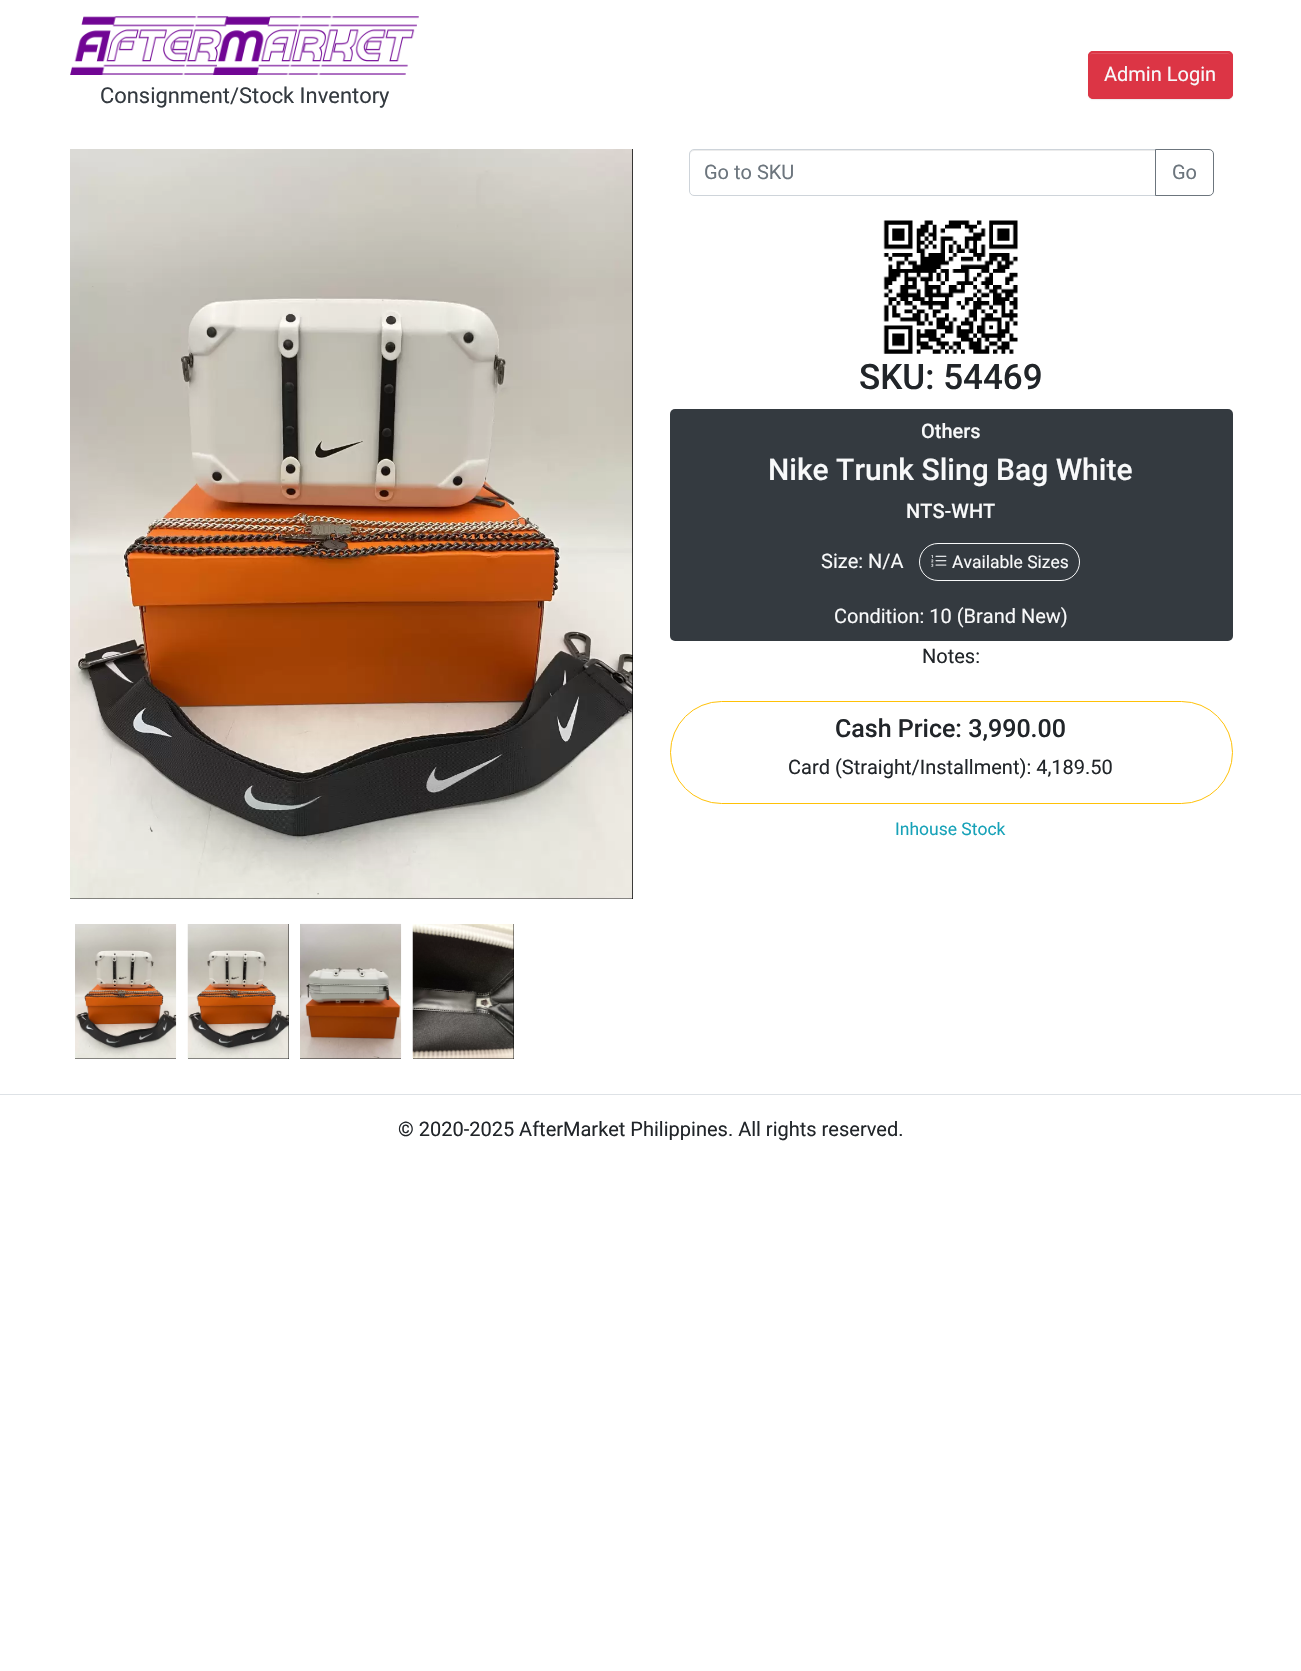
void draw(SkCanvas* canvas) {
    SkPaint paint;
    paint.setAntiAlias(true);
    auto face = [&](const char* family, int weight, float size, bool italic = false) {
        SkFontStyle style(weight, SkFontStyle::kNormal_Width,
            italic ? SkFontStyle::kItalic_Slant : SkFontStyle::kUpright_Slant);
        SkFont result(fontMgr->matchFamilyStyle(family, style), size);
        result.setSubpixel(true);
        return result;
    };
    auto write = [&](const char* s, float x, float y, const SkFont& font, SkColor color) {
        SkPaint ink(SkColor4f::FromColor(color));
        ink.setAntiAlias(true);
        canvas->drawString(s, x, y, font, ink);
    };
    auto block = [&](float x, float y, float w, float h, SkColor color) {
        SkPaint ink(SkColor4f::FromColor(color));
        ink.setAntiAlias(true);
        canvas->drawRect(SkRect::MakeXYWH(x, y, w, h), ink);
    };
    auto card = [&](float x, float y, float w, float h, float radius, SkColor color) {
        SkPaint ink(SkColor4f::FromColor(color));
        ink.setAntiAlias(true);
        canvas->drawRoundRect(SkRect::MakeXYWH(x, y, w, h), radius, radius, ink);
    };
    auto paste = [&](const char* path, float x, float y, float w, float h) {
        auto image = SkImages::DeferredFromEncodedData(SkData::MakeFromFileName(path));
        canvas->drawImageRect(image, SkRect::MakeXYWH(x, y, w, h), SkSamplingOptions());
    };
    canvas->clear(SK_ColorWHITE);
    paint.setColor(SkColorSetARGB(18, 0, 0, 0));
    paint.setMaskFilter(SkMaskFilter::MakeBlur(kNormal_SkBlurStyle, 0.5f));
    canvas->drawRoundRect(SkRect::MakeXYWH(1088, 53, 145, 47), 5, 5, paint);
    paint.setMaskFilter(nullptr);
    card(1088, 51, 145, 48, 5, SkColorSetRGB(220, 53, 69));
    paint.setColor(SkColorSetRGB(225, 83, 97));
    canvas->drawPath(SkPathBuilder().moveTo(1092, 54).lineTo(1228, 54).cubicTo(1230, 54, 1231, 55, 1231, 58).lineTo(1231, 57).cubicTo(1231, 55, 1229, 53, 1227, 53).lineTo(1093, 53).cubicTo(1091, 53, 1089, 55, 1089, 57).lineTo(1089, 58).cubicTo(1089, 55, 1090, 54, 1092, 54).close().detach(), paint);
    paint.setStyle(SkPaint::kStroke_Style);
    paint.setStrokeWidth(1);
    paint.setColor(SkColorSetRGB(220, 53, 69));
    canvas->drawRoundRect(SkRect::MakeXYWH(1088.5f, 51.5f, 144, 47), 4.5f, 4.5f, paint);
    auto kFont1 = face("Roboto", 400, 20);
    write("Admin Login", 1104, 81, kFont1, SkColorSetRGB(248, 249, 250));
    paste("pic1.png", 70, 16, 349, 59);
    auto kFont2 = face("Roboto", 400, 21.9f);
    write("Consignment/Stock Inventory", 100, 103, kFont2, SkColorSetRGB(52, 58, 64));
    block(70, 149, 563, 750, SK_ColorBLACK);
    paste("pic2.png", 70, 149, 563, 750);
    block(75, 1058, 101, 1, SK_ColorBLACK);
    paste("pic3.png", 75, 924, 102, 135);
    block(188, 924, 101, 135, SK_ColorBLACK);
    paste("pic4.png", 187, 924, 102, 135);
    block(300, 1058, 101, 1, SK_ColorBLACK);
    paste("pic5.png", 300, 923, 102, 136);
    block(413, 924, 101, 135, SK_ColorBLACK);
    paste("pic6.png", 412, 924, 102, 135);
    paint.setStyle(SkPaint::kFill_Style);
    paint.setColor(SkColorSetRGB(236, 236, 236));
    canvas->drawPath(SkPathBuilder().moveTo(694, 151).lineTo(1155, 151).lineTo(1155, 150).lineTo(694, 150).cubicTo(691, 150, 690, 152, 690, 155).cubicTo(690, 153, 692, 151, 694, 151).close().detach(), paint);
    paint.setStyle(SkPaint::kStroke_Style);
    paint.setColor(SkColorSetRGB(206, 212, 218));
    canvas->drawPath(SkPathBuilder().moveTo(694, 149.5f).lineTo(1155.5f, 149.5f).lineTo(1155.5f, 195.5f).lineTo(694, 195.5f).cubicTo(691.5f, 195.5f, 689.5f, 193.5f, 689.5f, 191).lineTo(689.5f, 154).cubicTo(689.5f, 151.5f, 691.5f, 149.5f, 694, 149.5f).close().detach(), paint);
    write("Go to SKU", 704, 179, kFont1, SkColorSetRGB(108, 117, 125));
    paint.setColor(SkColorSetRGB(108, 117, 125));
    canvas->drawPath(SkPathBuilder().moveTo(1155.5f, 149.5f).lineTo(1209, 149.5f).cubicTo(1211.5f, 149.5f, 1213.5f, 151.5f, 1213.5f, 154).lineTo(1213.5f, 191).cubicTo(1213.5f, 193.5f, 1211.5f, 195.5f, 1209, 195.5f).lineTo(1155.5f, 195.5f).close().detach(), paint);
    write("Go", 1172, 179, kFont1, SkColorSetRGB(108, 117, 125));
    paste("pic7.png", 883, 220, 135, 134);
    auto kFont3 = face("Roboto", 500, 35);
    write("SKU: 54469", 859, 389, kFont3, SkColorSetRGB(33, 37, 41));
    card(670, 409, 563, 232, 5, SkColorSetRGB(52, 58, 64));
    auto kFont4 = face("Roboto", 500, 20);
    write("Others", 921, 438, kFont4, SkColorSetRGB(248, 249, 250));
    auto kFont5 = face("Roboto", 500, 30);
    write("Nike Trunk Sling Bag White", 768, 480, kFont5, SkColorSetRGB(248, 249, 250));
    write("NTS-WHT", 906, 518, kFont4, SkColorSetRGB(248, 249, 250));
    write("Size: N/A", 821, 568, kFont1, SkColorSetRGB(248, 249, 250));
    paint.setColor(SkColorSetRGB(248, 249, 250));
    canvas->drawRoundRect(SkRect::MakeXYWH(919.5f, 543.5f, 160, 37), 18.5f, 18.5f, paint);
    paste("pic8.png", 931, 555, 16, 12);
    auto kFont6 = face("Roboto", 400, 17.5f);
    write("Available Sizes", 952, 568, kFont6, SkColorSetRGB(248, 249, 250));
    write("Condition: 10 (Brand New)", 834, 623, kFont1, SkColorSetRGB(248, 249, 250));
    write("Notes:", 922, 663, kFont1, SkColorSetRGB(33, 37, 41));
    paint.setColor(SkColorSetRGB(255, 193, 7));
    canvas->drawRoundRect(SkRect::MakeXYWH(670.5f, 701.5f, 562, 102), 51, 51, paint);
    auto kFont7 = face("Roboto", 500, 25);
    write("Cash Price: 3,990.00", 835, 737, kFont7, SkColorSetRGB(33, 37, 41));
    write("Card (Straight/Installment): 4,189.50", 788, 774, kFont1, SkColorSetRGB(33, 37, 41));
    write("Inhouse Stock", 895, 835, kFont6, SkColorSetRGB(23, 162, 184));
    block(0, 1094, 1301, 1, SkColorSetRGB(222, 226, 230));
    write("© 2020-2025 AfterMarket Philippines. All rights reserved.", 398, 1136, kFont1, SkColorSetRGB(33, 37, 41));
}
